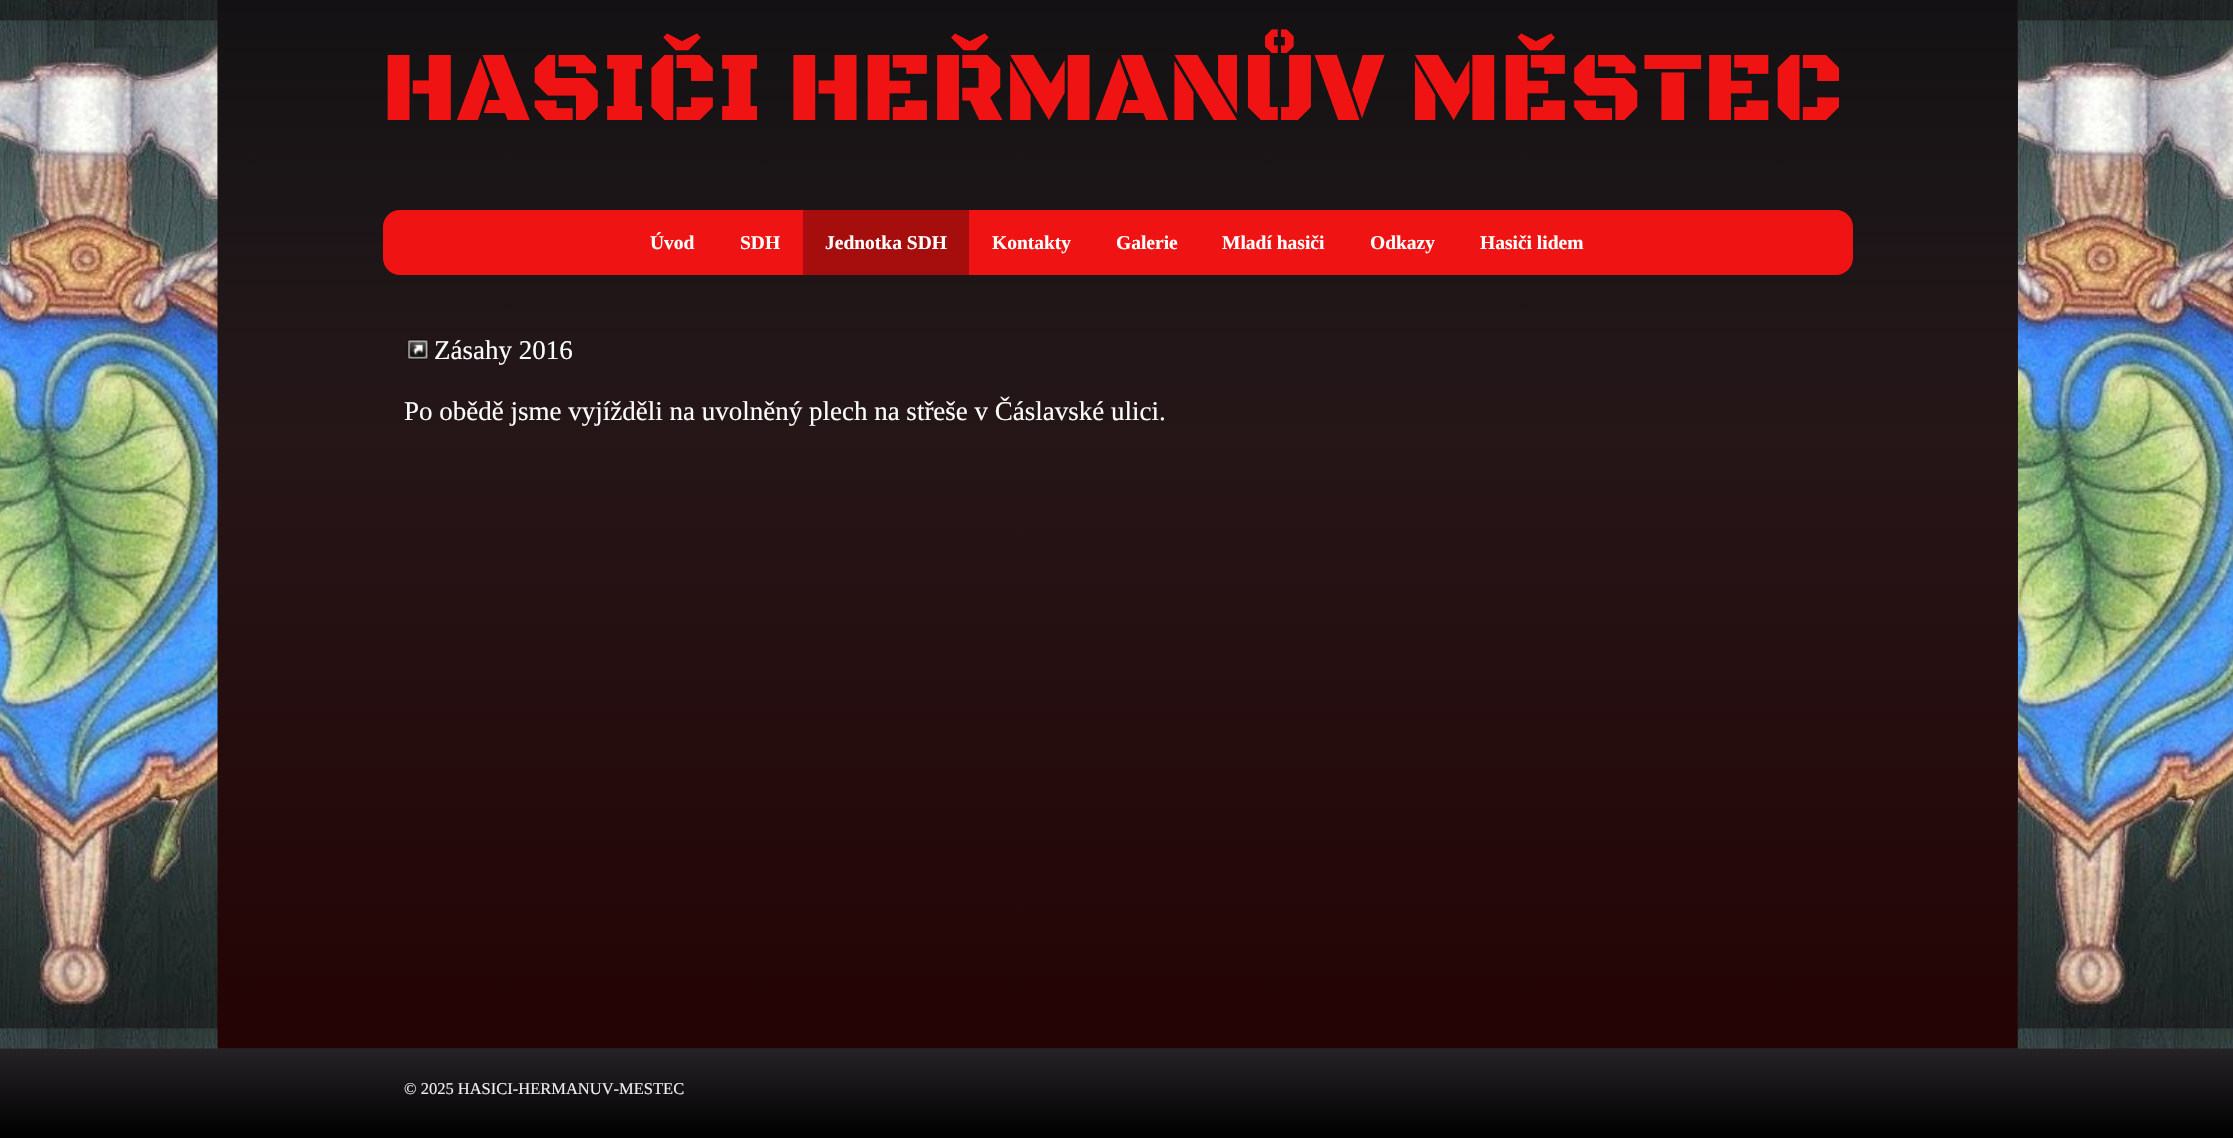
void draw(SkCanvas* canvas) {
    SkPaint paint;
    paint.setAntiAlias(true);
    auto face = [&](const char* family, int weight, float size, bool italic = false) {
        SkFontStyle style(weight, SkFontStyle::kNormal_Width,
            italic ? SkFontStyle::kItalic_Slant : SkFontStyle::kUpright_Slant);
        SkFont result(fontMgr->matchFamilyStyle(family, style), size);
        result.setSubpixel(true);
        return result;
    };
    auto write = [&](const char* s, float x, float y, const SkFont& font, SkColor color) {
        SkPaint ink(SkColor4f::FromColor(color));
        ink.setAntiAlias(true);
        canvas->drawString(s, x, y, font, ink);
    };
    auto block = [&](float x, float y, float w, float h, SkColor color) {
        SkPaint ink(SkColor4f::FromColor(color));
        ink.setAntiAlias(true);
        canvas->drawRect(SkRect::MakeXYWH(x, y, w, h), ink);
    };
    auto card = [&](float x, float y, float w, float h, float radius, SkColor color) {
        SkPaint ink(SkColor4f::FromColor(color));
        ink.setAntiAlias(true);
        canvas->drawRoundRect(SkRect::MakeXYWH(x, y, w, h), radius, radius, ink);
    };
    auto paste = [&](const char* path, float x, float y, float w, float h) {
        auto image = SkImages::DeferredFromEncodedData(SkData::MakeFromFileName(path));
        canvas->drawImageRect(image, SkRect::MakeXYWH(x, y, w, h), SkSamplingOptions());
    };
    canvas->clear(SK_ColorWHITE);
    paste("pic1.png", 0, 1048, 2233, 1);
    paste("pic2.png", 0, 0, 2233, 1049);
    block(218, 0, 1800, 1049, SkColorSetRGB(38, 35, 38));
    paste("pic3.png", 217, 0, 1801, 1049);
    auto kFont1 = face("Black Ops One", 900, 100.5f);
    write("HASIČI HEŘMANŮV MĚSTEC", 382, 120, kFont1, SkColorSetRGB(240, 19, 19));
    card(383, 210, 1470, 65, 17, SkColorSetRGB(240, 19, 19));
    auto kFont2 = face("Liberation Serif", 700, 19.5f);
    write("Úvod", 650, 249, kFont2, SK_ColorWHITE);
    write("SDH", 740, 249, kFont2, SK_ColorWHITE);
    block(803, 210, 166, 65, SkColorSetRGB(166, 13, 13));
    write("Jednotka SDH", 825, 249, kFont2, SK_ColorWHITE);
    write("Kontakty", 992, 249, kFont2, SK_ColorWHITE);
    write("Galerie", 1116, 249, kFont2, SK_ColorWHITE);
    write("Mladí hasiči", 1222, 249, kFont2, SK_ColorWHITE);
    write("Odkazy", 1370, 249, kFont2, SK_ColorWHITE);
    write("Hasiči lidem", 1480, 249, kFont2, SK_ColorWHITE);
    paste("pic4.png", 406, 339, 23, 21);
    auto kFont3 = face("Liberation Serif", 400, 27);
    write("Zásahy 2016", 434, 359, kFont3, SK_ColorWHITE);
    write("Po obědě jsme vyjížděli na uvolněný plech na střeše v Čáslavské ulici.", 404, 420, kFont3, SK_ColorWHITE);
    {
        const SkColor colors[] = {SkColorSetRGB(38, 35, 38), SK_ColorBLACK};
        const float stops[] = {0, 1};
        const SkPoint ends[] = {{1117, 1048}, {1117, 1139}};
        paint.setShader(SkGradientShader::MakeLinear(ends, colors, stops, 2, SkTileMode::kClamp));
        paint.setAlpha(255);
    }
    canvas->drawRect(SkRect::MakeXYWH(0, 1049, 2233, 89), paint);
    auto kFont4 = face("Liberation Serif", 400, 16.5f);
    write("© 2025 HASICI-HERMANUV-MESTEC", 404, 1094, kFont4, SkColorSetRGB(238, 238, 238));
}
